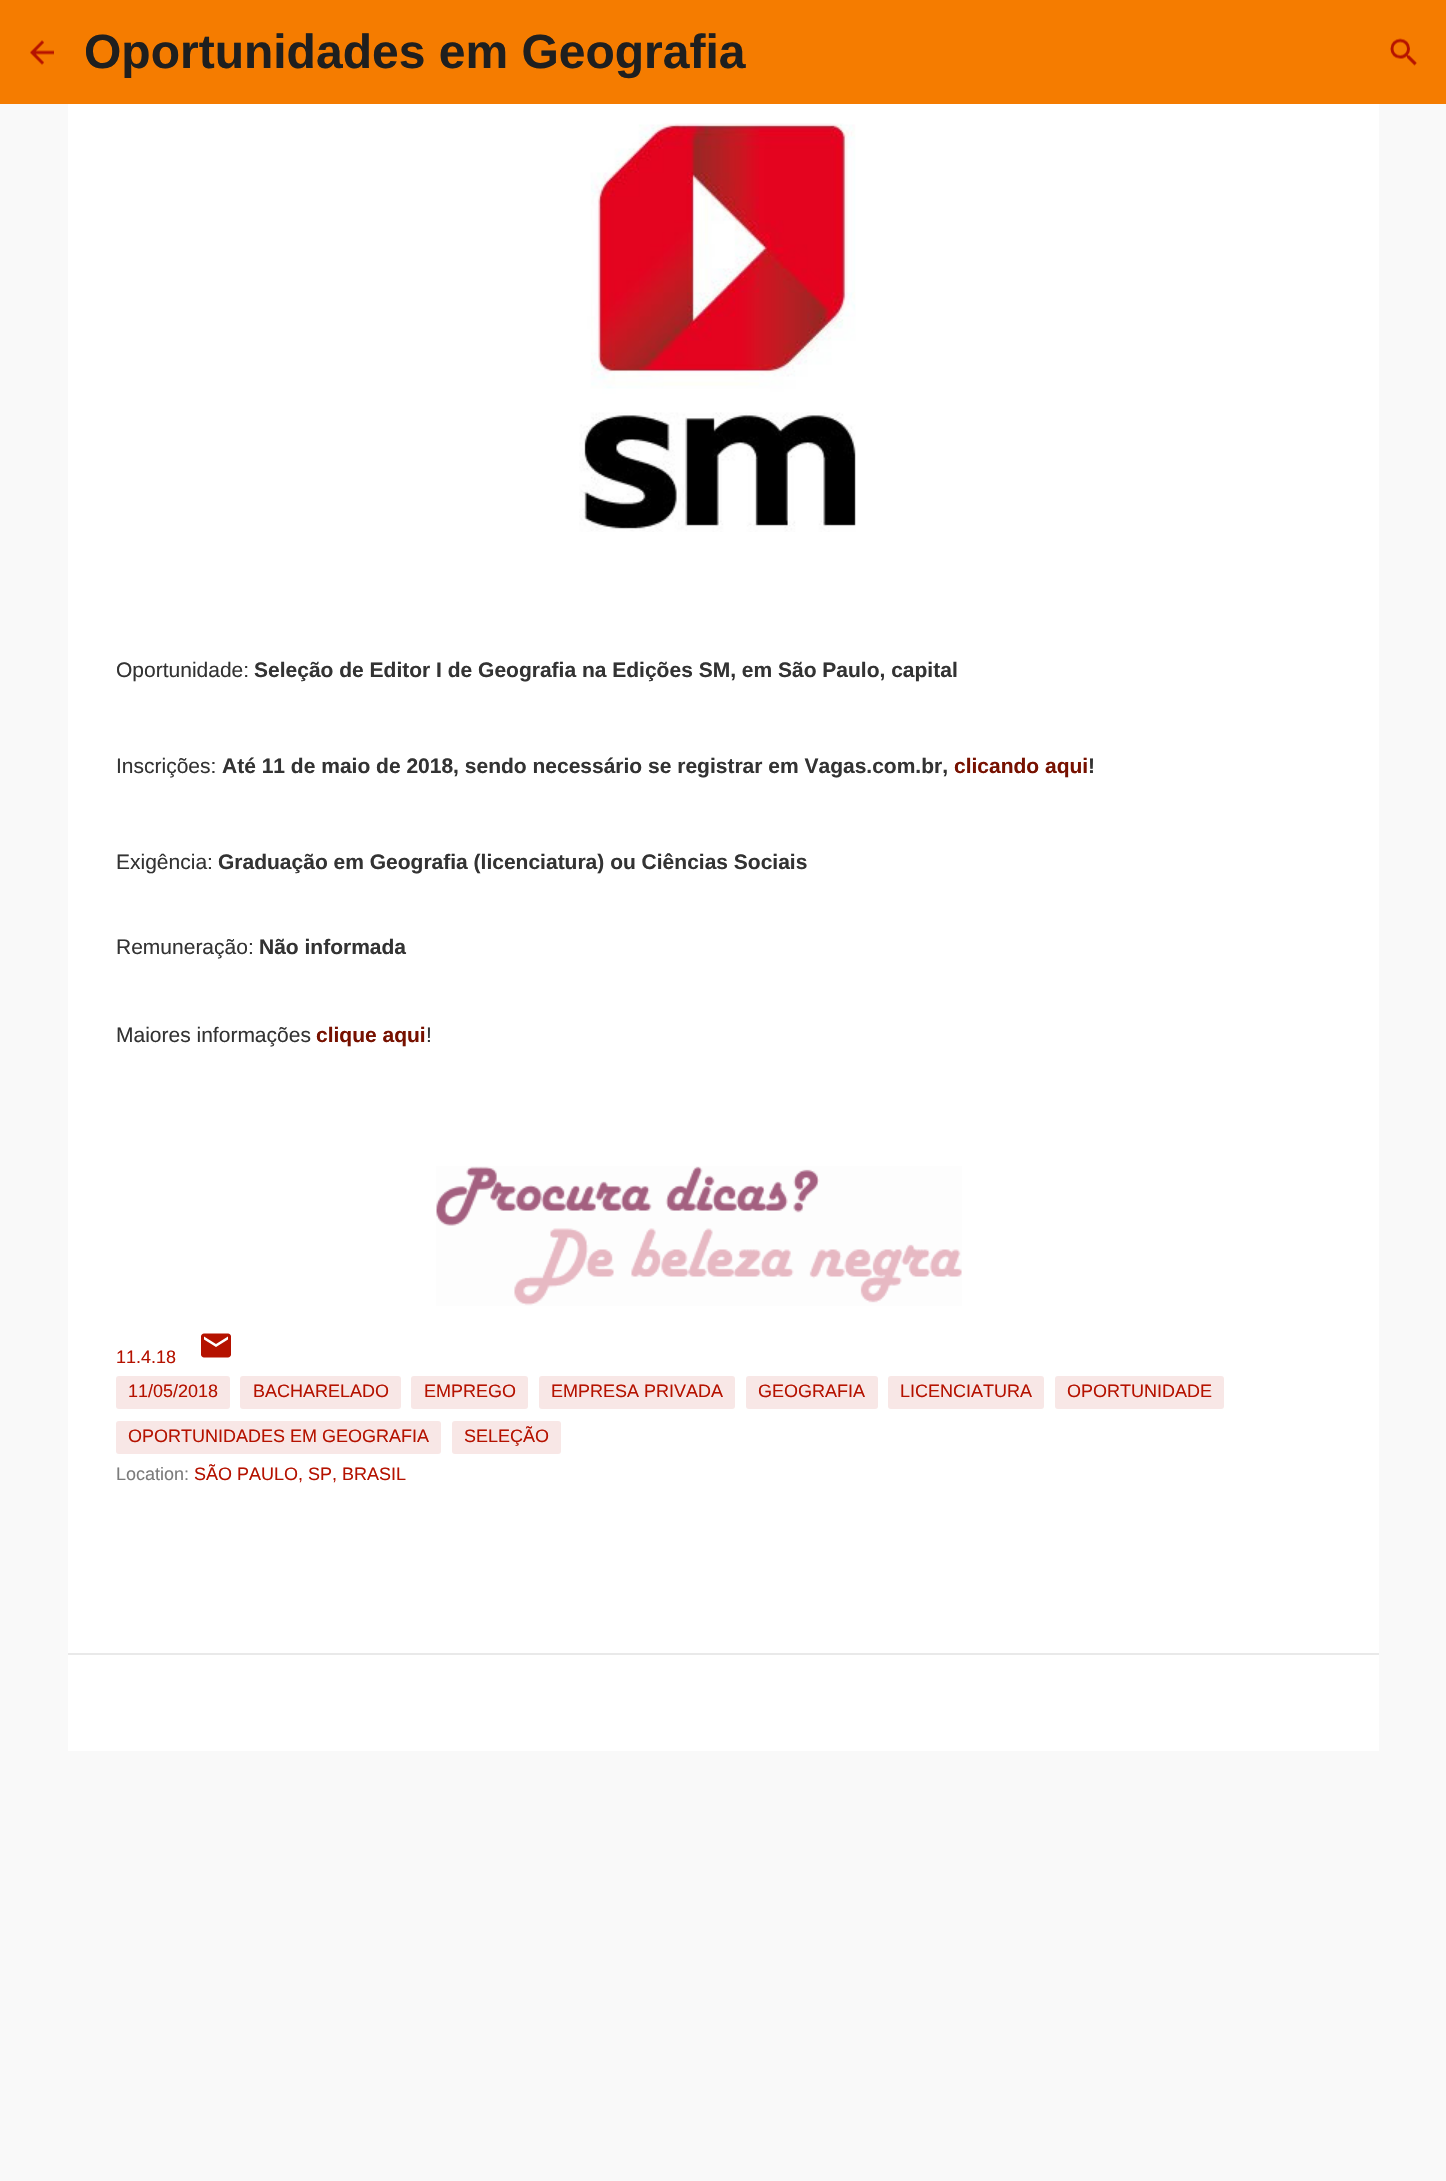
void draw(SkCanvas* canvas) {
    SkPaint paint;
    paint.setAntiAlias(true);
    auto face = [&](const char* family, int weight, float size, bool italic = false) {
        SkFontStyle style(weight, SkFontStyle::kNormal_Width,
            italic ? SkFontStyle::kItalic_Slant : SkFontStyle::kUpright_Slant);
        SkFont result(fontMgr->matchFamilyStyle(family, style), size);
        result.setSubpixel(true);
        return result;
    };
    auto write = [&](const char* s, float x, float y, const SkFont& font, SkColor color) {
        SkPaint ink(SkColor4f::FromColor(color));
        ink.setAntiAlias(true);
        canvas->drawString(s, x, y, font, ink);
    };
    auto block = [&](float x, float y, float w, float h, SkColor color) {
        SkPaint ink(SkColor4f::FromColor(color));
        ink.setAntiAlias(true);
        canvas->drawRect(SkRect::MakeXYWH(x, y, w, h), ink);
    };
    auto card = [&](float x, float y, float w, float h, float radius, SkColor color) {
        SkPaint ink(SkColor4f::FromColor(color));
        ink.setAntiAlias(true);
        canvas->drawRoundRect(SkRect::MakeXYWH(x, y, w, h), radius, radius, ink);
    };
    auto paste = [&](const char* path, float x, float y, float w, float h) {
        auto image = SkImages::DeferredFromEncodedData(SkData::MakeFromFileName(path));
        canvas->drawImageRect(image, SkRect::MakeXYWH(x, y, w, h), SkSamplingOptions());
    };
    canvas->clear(SkColorSetRGB(249, 249, 249));
    block(0, 0, 1446, 104, SkColorSetRGB(245, 124, 0));
    paste("pic1.png", 30, 40, 24, 25);
    auto kFont1 = face("Liberation Sans", 700, 48);
    write("Oportunidades em Geografia", 84, 68, kFont1, SkColorSetRGB(31, 31, 31));
    paste("pic2.png", 1390, 38, 27, 28);
    block(68, 104, 1311, 1549, SK_ColorWHITE);
    paste("pic3.png", 579, 123, 277, 409);
    auto kFont2 = face("Liberation Sans", 400, 21);
    write("Oportunidade:", 116, 677, kFont2, SkColorSetRGB(51, 51, 51));
    auto kFont3 = face("Liberation Sans", 700, 21);
    write("Seleção de Editor I de Geografia na Edições SM, em São Paulo, capital", 254, 677, kFont3, SkColorSetRGB(51, 51, 51));
    write("Inscrições:", 116, 773, kFont2, SkColorSetRGB(51, 51, 51));
    write("Até 11 de maio de 2018, sendo necessário se registrar em Vagas.com.br,", 222, 773, kFont3, SkColorSetRGB(51, 51, 51));
    write("clicando aqui", 954, 773, kFont3, SkColorSetRGB(119, 17, 0));
    write("!", 1088, 773, kFont3, SkColorSetRGB(51, 51, 51));
    write("Exigência:", 116, 869, kFont2, SkColorSetRGB(51, 51, 51));
    write("Graduação em Geografia (licenciatura) ou Ciências Sociais", 218, 869, kFont3, SkColorSetRGB(51, 51, 51));
    write("Remuneração:", 116, 954, kFont2, SkColorSetRGB(51, 51, 51));
    write("Não informada", 259, 954, kFont3, SkColorSetRGB(51, 51, 51));
    write("Maiores informações", 116, 1042, kFont2, SkColorSetRGB(51, 51, 51));
    write("clique aqui", 316, 1042, kFont3, SkColorSetRGB(119, 17, 0));
    write("!", 426, 1042, kFont2, SkColorSetRGB(51, 51, 51));
    paste("pic4.png", 436, 1166, 526, 140);
    auto kFont4 = face("Liberation Sans", 400, 18);
    write("11.4.18", 116, 1363, kFont4, SkColorSetRGB(181, 18, 0));
    paste("pic5.png", 201, 1333, 30, 25);
    card(116, 1376, 114, 33, 3, SkColorSetRGB(248, 231, 230));
    write("11/05/2018", 128, 1397, kFont4, SkColorSetRGB(181, 18, 0));
    card(240, 1376, 161, 33, 3, SkColorSetRGB(248, 231, 230));
    write("BACHARELADO", 253, 1397, kFont4, SkColorSetRGB(181, 18, 0));
    card(411, 1376, 117, 33, 3, SkColorSetRGB(248, 231, 230));
    write("EMPREGO", 424, 1397, kFont4, SkColorSetRGB(181, 18, 0));
    card(539, 1376, 196, 33, 3, SkColorSetRGB(248, 231, 230));
    write("EMPRESA PRIVADA", 551, 1397, kFont4, SkColorSetRGB(181, 18, 0));
    card(746, 1376, 132, 33, 3, SkColorSetRGB(248, 231, 230));
    write("GEOGRAFIA", 758, 1397, kFont4, SkColorSetRGB(181, 18, 0));
    card(888, 1376, 156, 33, 3, SkColorSetRGB(248, 231, 230));
    write("LICENCIATURA", 900, 1397, kFont4, SkColorSetRGB(181, 18, 0));
    card(1055, 1376, 169, 33, 3, SkColorSetRGB(248, 231, 230));
    write("OPORTUNIDADE", 1067, 1397, kFont4, SkColorSetRGB(181, 18, 0));
    card(116, 1421, 325, 33, 3, SkColorSetRGB(248, 231, 230));
    write("OPORTUNIDADES EM GEOGRAFIA", 128, 1442, kFont4, SkColorSetRGB(181, 18, 0));
    card(452, 1421, 109, 33, 3, SkColorSetRGB(248, 231, 230));
    write("SELEÇÃO", 464, 1442, kFont4, SkColorSetRGB(181, 18, 0));
    write("Location:", 116, 1480, kFont4, SkColorSetRGB(124, 124, 124));
    write("SÃO PAULO, SP, BRASIL", 194, 1480, kFont4, SkColorSetRGB(181, 18, 0));
    block(68, 1655, 1311, 96, SK_ColorWHITE);
    block(68, 1653, 1311, 2, SkColorSetRGB(233, 233, 233));
}
